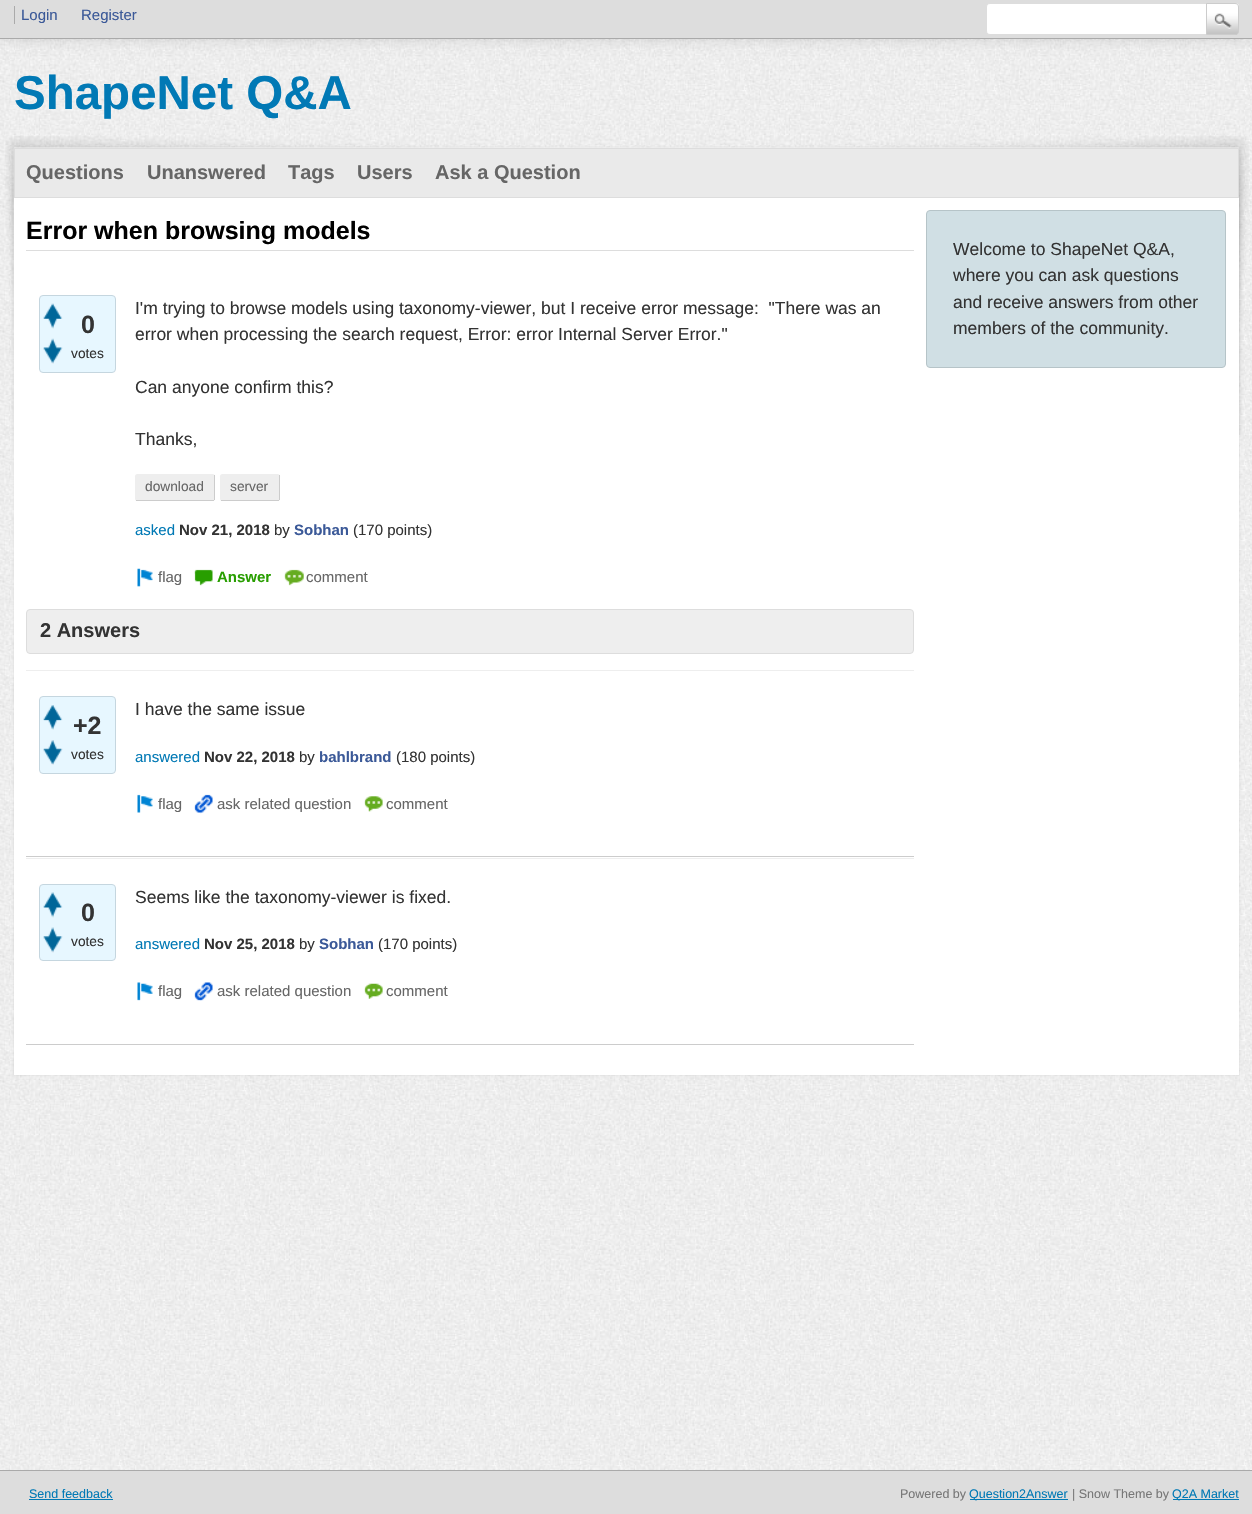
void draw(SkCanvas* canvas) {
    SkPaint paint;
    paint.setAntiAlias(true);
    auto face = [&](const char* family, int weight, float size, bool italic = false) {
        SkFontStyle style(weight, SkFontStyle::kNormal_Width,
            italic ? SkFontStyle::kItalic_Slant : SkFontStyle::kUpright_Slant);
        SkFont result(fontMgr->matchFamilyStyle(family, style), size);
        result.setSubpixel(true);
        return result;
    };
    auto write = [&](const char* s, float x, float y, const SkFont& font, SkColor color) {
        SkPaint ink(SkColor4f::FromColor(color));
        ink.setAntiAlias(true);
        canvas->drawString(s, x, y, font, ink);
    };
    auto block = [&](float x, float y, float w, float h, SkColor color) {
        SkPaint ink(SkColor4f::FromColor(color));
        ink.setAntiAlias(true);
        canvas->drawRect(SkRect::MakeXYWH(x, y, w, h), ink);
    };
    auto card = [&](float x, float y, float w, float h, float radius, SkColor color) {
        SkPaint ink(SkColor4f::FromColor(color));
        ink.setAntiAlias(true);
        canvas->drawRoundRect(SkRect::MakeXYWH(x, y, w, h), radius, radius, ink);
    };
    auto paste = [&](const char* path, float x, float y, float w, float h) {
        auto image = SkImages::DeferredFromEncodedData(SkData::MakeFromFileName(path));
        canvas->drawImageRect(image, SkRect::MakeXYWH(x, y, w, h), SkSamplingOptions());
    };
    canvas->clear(SK_ColorWHITE);
    paste("pic1.png", 0, 39, 1252, 1431);
    paint.setColor(SkColorSetARGB(38, 0, 0, 0));
    paint.setMaskFilter(SkMaskFilter::MakeBlur(kNormal_SkBlurStyle, 6));
    canvas->drawRect(SkRect::MakeXYWH(0, 0, 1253, 39), paint);
    paint.setMaskFilter(nullptr);
    block(0, 0, 1252, 38, SkColorSetRGB(221, 221, 221));
    block(0, 38, 1252, 1, SkColorSetRGB(170, 170, 170));
    auto kFont1 = face("Liberation Sans", 400, 15);
    write("Login", 21, 20, kFont1, SkColorSetRGB(59, 89, 152));
    block(14, 6, 1, 18, SkColorSetRGB(170, 170, 170));
    write("Register", 81, 20, kFont1, SkColorSetRGB(59, 89, 152));
    paint.setColor(SK_ColorWHITE);
    canvas->drawPath(SkPathBuilder().moveTo(990, 3.5f).lineTo(1207.5f, 3.5f).lineTo(1207.5f, 34.5f).lineTo(990, 34.5f).cubicTo(988, 34.5f, 986.5f, 33, 986.5f, 31).lineTo(986.5f, 7).cubicTo(986.5f, 5, 988, 3.5f, 990, 3.5f).close().detach(), paint);
    paint.setStyle(SkPaint::kStroke_Style);
    paint.setStrokeWidth(1);
    paint.setColor(SkColorSetRGB(221, 221, 221));
    canvas->drawPath(SkPathBuilder().moveTo(990, 3.5f).lineTo(1207.5f, 3.5f).lineTo(1207.5f, 34.5f).lineTo(990, 34.5f).cubicTo(988, 34.5f, 986.5f, 33, 986.5f, 31).lineTo(986.5f, 7).cubicTo(986.5f, 5, 988, 3.5f, 990, 3.5f).close().detach(), paint);
    paste("pic2.png", 1207, 3, 32, 32);
    paint.setColor(SkColorSetRGB(204, 204, 204));
    canvas->drawPath(SkPathBuilder().moveTo(1206.5f, 3.5f).lineTo(1235, 3.5f).cubicTo(1237, 3.5f, 1238.5f, 5, 1238.5f, 7).lineTo(1238.5f, 31).cubicTo(1238.5f, 33, 1237, 34.5f, 1235, 34.5f).lineTo(1206.5f, 34.5f).close().detach(), paint);
    auto kFont2 = face("Liberation Sans", 700, 47.5f);
    write("ShapeNet Q&A", 14, 109, kFont2, SkColorSetRGB(1, 121, 181));
    paste("pic3.png", 5, 136, 1244, 545);
    paint.setStyle(SkPaint::kFill_Style);
    paint.setColor(SkColorSetARGB(26, 0, 0, 0));
    paint.setMaskFilter(SkMaskFilter::MakeBlur(kNormal_SkBlurStyle, 1));
    canvas->drawRect(SkRect::MakeXYWH(14, 148, 1225, 927), paint);
    paint.setMaskFilter(nullptr);
    block(14, 198, 1225, 877, SK_ColorWHITE);
    paint.setColor(SkColorSetRGB(234, 234, 234));
    canvas->drawRect(SkRect::MakeXYWH(14.5f, 148.5f, 1224, 49), paint);
    paint.setStyle(SkPaint::kStroke_Style);
    paint.setColor(SkColorSetRGB(221, 221, 221));
    canvas->drawRect(SkRect::MakeXYWH(14.5f, 148.5f, 1224, 49), paint);
    auto kFont3 = face("Liberation Sans", 700, 20);
    write("Questions", 26, 179, kFont3, SkColorSetRGB(102, 102, 102));
    write("Unanswered", 147, 179, kFont3, SkColorSetRGB(102, 102, 102));
    write("Tags", 288, 179, kFont3, SkColorSetRGB(102, 102, 102));
    write("Users", 357, 179, kFont3, SkColorSetRGB(102, 102, 102));
    write("Ask a Question", 435, 179, kFont3, SkColorSetRGB(102, 102, 102));
    block(26, 250, 888, 1, SkColorSetRGB(221, 221, 221));
    auto kFont4 = face("Liberation Sans", 700, 25);
    write("Error when browsing models", 26, 239, kFont4, SK_ColorBLACK);
    paint.setStyle(SkPaint::kFill_Style);
    paint.setColor(SkColorSetRGB(231, 247, 255));
    canvas->drawRoundRect(SkRect::MakeXYWH(39.5f, 295.5f, 76, 77), 3.5f, 3.5f, paint);
    paint.setStyle(SkPaint::kStroke_Style);
    paint.setColor(SkColorSetRGB(197, 214, 223));
    canvas->drawRoundRect(SkRect::MakeXYWH(39.5f, 295.5f, 76, 77), 3.5f, 3.5f, paint);
    paste("pic4.png", 43, 303, 20, 26);
    paste("pic5.png", 43, 338, 20, 26);
    write("0", 81, 333, kFont4, SkColorSetRGB(51, 51, 51));
    auto kFont5 = face("Liberation Sans", 400, 13.75f);
    write("votes", 71, 358, kFont5, SkColorSetRGB(51, 51, 51));
    auto kFont6 = face("Liberation Sans", 400, 17.5f);
    write("I'm trying to browse models using taxonomy-viewer, but I receive error message:  \"There was an", 135, 314, kFont6, SkColorSetRGB(51, 51, 51));
    write("error when processing the search request, Error: error Internal Server Error.\"", 135, 340, kFont6, SkColorSetRGB(51, 51, 51));
    write("Can anyone confirm this?", 135, 393, kFont6, SkColorSetRGB(51, 51, 51));
    write("Thanks,", 135, 445, kFont6, SkColorSetRGB(51, 51, 51));
    card(135, 474, 80, 27, 2.5f, SkColorSetRGB(238, 238, 238));
    block(214, 475, 1, 25, SkColorSetRGB(204, 204, 204));
    block(136, 500, 78, 1, SkColorSetRGB(204, 204, 204));
    write("download", 145, 491, kFont5, SkColorSetRGB(102, 102, 102));
    card(220, 474, 60, 27, 2.5f, SkColorSetRGB(238, 238, 238));
    block(279, 475, 1, 25, SkColorSetRGB(204, 204, 204));
    block(221, 500, 58, 1, SkColorSetRGB(204, 204, 204));
    write("server", 230, 491, kFont5, SkColorSetRGB(102, 102, 102));
    write("asked", 135, 535, kFont1, SkColorSetRGB(1, 121, 181));
    auto kFont7 = face("Liberation Sans", 700, 15);
    write("Nov 21, 2018", 179, 535, kFont7, SkColorSetRGB(51, 51, 51));
    write("by", 274, 535, kFont1, SkColorSetRGB(51, 51, 51));
    write("Sobhan", 294, 535, kFont7, SkColorSetRGB(59, 89, 152));
    write("(170 points)", 353, 535, kFont1, SkColorSetRGB(51, 51, 51));
    paste("pic6.png", 137, 568, 16, 19);
    write("flag", 158, 582, kFont1, SkColorSetRGB(102, 102, 102));
    paste("pic7.png", 194, 569, 19, 17);
    write("Answer", 217, 582, kFont7, SkColorSetRGB(40, 158, 0));
    paste("pic8.png", 284, 569, 20, 17);
    write("comment", 306, 582, kFont1, SkColorSetRGB(102, 102, 102));
    paint.setStyle(SkPaint::kFill_Style);
    paint.setColor(SkColorSetRGB(238, 238, 238));
    canvas->drawRoundRect(SkRect::MakeXYWH(26.5f, 609.5f, 887, 44), 3.5f, 3.5f, paint);
    paint.setStyle(SkPaint::kStroke_Style);
    paint.setColor(SkColorSetRGB(221, 221, 221));
    canvas->drawRoundRect(SkRect::MakeXYWH(26.5f, 609.5f, 887, 44), 3.5f, 3.5f, paint);
    write("2 Answers", 40, 637, kFont3, SkColorSetRGB(51, 51, 51));
    block(26, 670, 888, 1, SkColorSetRGB(238, 238, 238));
    block(26, 856, 888, 1, SkColorSetRGB(204, 204, 204));
    paint.setStyle(SkPaint::kFill_Style);
    paint.setColor(SkColorSetRGB(231, 247, 255));
    canvas->drawRoundRect(SkRect::MakeXYWH(39.5f, 696.5f, 76, 77), 3.5f, 3.5f, paint);
    paint.setStyle(SkPaint::kStroke_Style);
    paint.setColor(SkColorSetRGB(197, 214, 223));
    canvas->drawRoundRect(SkRect::MakeXYWH(39.5f, 696.5f, 76, 77), 3.5f, 3.5f, paint);
    paste("pic9.png", 43, 705, 20, 25);
    paste("pic10.png", 43, 740, 20, 25);
    write("+2", 73, 734, kFont4, SkColorSetRGB(51, 51, 51));
    write("votes", 71, 759, kFont5, SkColorSetRGB(51, 51, 51));
    write("I have the same issue", 135, 715, kFont6, SkColorSetRGB(51, 51, 51));
    write("answered", 135, 762, kFont1, SkColorSetRGB(1, 121, 181));
    write("Nov 22, 2018", 204, 762, kFont7, SkColorSetRGB(51, 51, 51));
    write("by", 299, 762, kFont1, SkColorSetRGB(51, 51, 51));
    write("bahlbrand", 319, 762, kFont7, SkColorSetRGB(59, 89, 152));
    write("(180 points)", 396, 762, kFont1, SkColorSetRGB(51, 51, 51));
    paste("pic11.png", 137, 794, 16, 19);
    write("flag", 158, 809, kFont1, SkColorSetRGB(102, 102, 102));
    paste("pic12.png", 194, 794, 19, 20);
    write("ask related question", 217, 809, kFont1, SkColorSetRGB(102, 102, 102));
    paste("pic13.png", 364, 796, 19, 16);
    write("comment", 386, 809, kFont1, SkColorSetRGB(102, 102, 102));
    block(26, 858, 888, 1, SkColorSetRGB(238, 238, 238));
    block(26, 1044, 888, 1, SkColorSetRGB(204, 204, 204));
    paint.setStyle(SkPaint::kFill_Style);
    paint.setColor(SkColorSetRGB(231, 247, 255));
    canvas->drawRoundRect(SkRect::MakeXYWH(39.5f, 884.5f, 76, 76), 3.5f, 3.5f, paint);
    paint.setStyle(SkPaint::kStroke_Style);
    paint.setColor(SkColorSetRGB(197, 214, 223));
    canvas->drawRoundRect(SkRect::MakeXYWH(39.5f, 884.5f, 76, 76), 3.5f, 3.5f, paint);
    paste("pic14.png", 43, 892, 20, 26);
    paste("pic15.png", 43, 927, 20, 26);
    write("0", 81, 921, kFont4, SkColorSetRGB(51, 51, 51));
    write("votes", 71, 946, kFont5, SkColorSetRGB(51, 51, 51));
    write("Seems like the taxonomy-viewer is fixed.", 135, 903, kFont6, SkColorSetRGB(51, 51, 51));
    write("answered", 135, 949, kFont1, SkColorSetRGB(1, 121, 181));
    write("Nov 25, 2018", 204, 949, kFont7, SkColorSetRGB(51, 51, 51));
    write("by", 299, 949, kFont1, SkColorSetRGB(51, 51, 51));
    write("Sobhan", 319, 949, kFont7, SkColorSetRGB(59, 89, 152));
    write("(170 points)", 378, 949, kFont1, SkColorSetRGB(51, 51, 51));
    paste("pic16.png", 137, 982, 16, 19);
    write("flag", 158, 996, kFont1, SkColorSetRGB(102, 102, 102));
    paste("pic17.png", 194, 982, 19, 19);
    write("ask related question", 217, 996, kFont1, SkColorSetRGB(102, 102, 102));
    paste("pic18.png", 364, 983, 19, 16);
    write("comment", 386, 996, kFont1, SkColorSetRGB(102, 102, 102));
    paint.setStyle(SkPaint::kFill_Style);
    paint.setColor(SkColorSetRGB(208, 223, 228));
    canvas->drawRoundRect(SkRect::MakeXYWH(926.5f, 210.5f, 299, 157), 3.5f, 3.5f, paint);
    paint.setStyle(SkPaint::kStroke_Style);
    paint.setColor(SkColorSetRGB(182, 196, 200));
    canvas->drawRoundRect(SkRect::MakeXYWH(926.5f, 210.5f, 299, 157), 3.5f, 3.5f, paint);
    write("Welcome to ShapeNet Q&A,", 953, 255, kFont6, SkColorSetRGB(51, 51, 51));
    write("where you can ask questions", 953, 281, kFont6, SkColorSetRGB(51, 51, 51));
    write("and receive answers from other", 953, 308, kFont6, SkColorSetRGB(51, 51, 51));
    write("members of the community.", 953, 334, kFont6, SkColorSetRGB(51, 51, 51));
    block(0, 1471, 1252, 43, SkColorSetRGB(221, 221, 221));
    block(0, 1470, 1252, 1, SkColorSetRGB(170, 170, 170));
    auto kFont8 = face("Liberation Sans", 400, 12.5f);
    write("Send feedback", 29, 1498, kFont8, SkColorSetRGB(1, 121, 181));
    block(29, 1499, 84, 1, SkColorSetRGB(1, 121, 181));
    write("Powered by", 900, 1498, kFont8, SkColorSetRGB(119, 119, 119));
    block(970, 1499, 98, 1, SkColorSetRGB(1, 121, 181));
    write("Question2Answer", 969, 1498, kFont8, SkColorSetRGB(1, 121, 181));
    write("| Snow Theme by", 1072, 1498, kFont8, SkColorSetRGB(119, 119, 119));
    block(1173, 1499, 66, 1, SkColorSetRGB(1, 121, 181));
    write("Q2A Market", 1172, 1498, kFont8, SkColorSetRGB(1, 121, 181));
}
